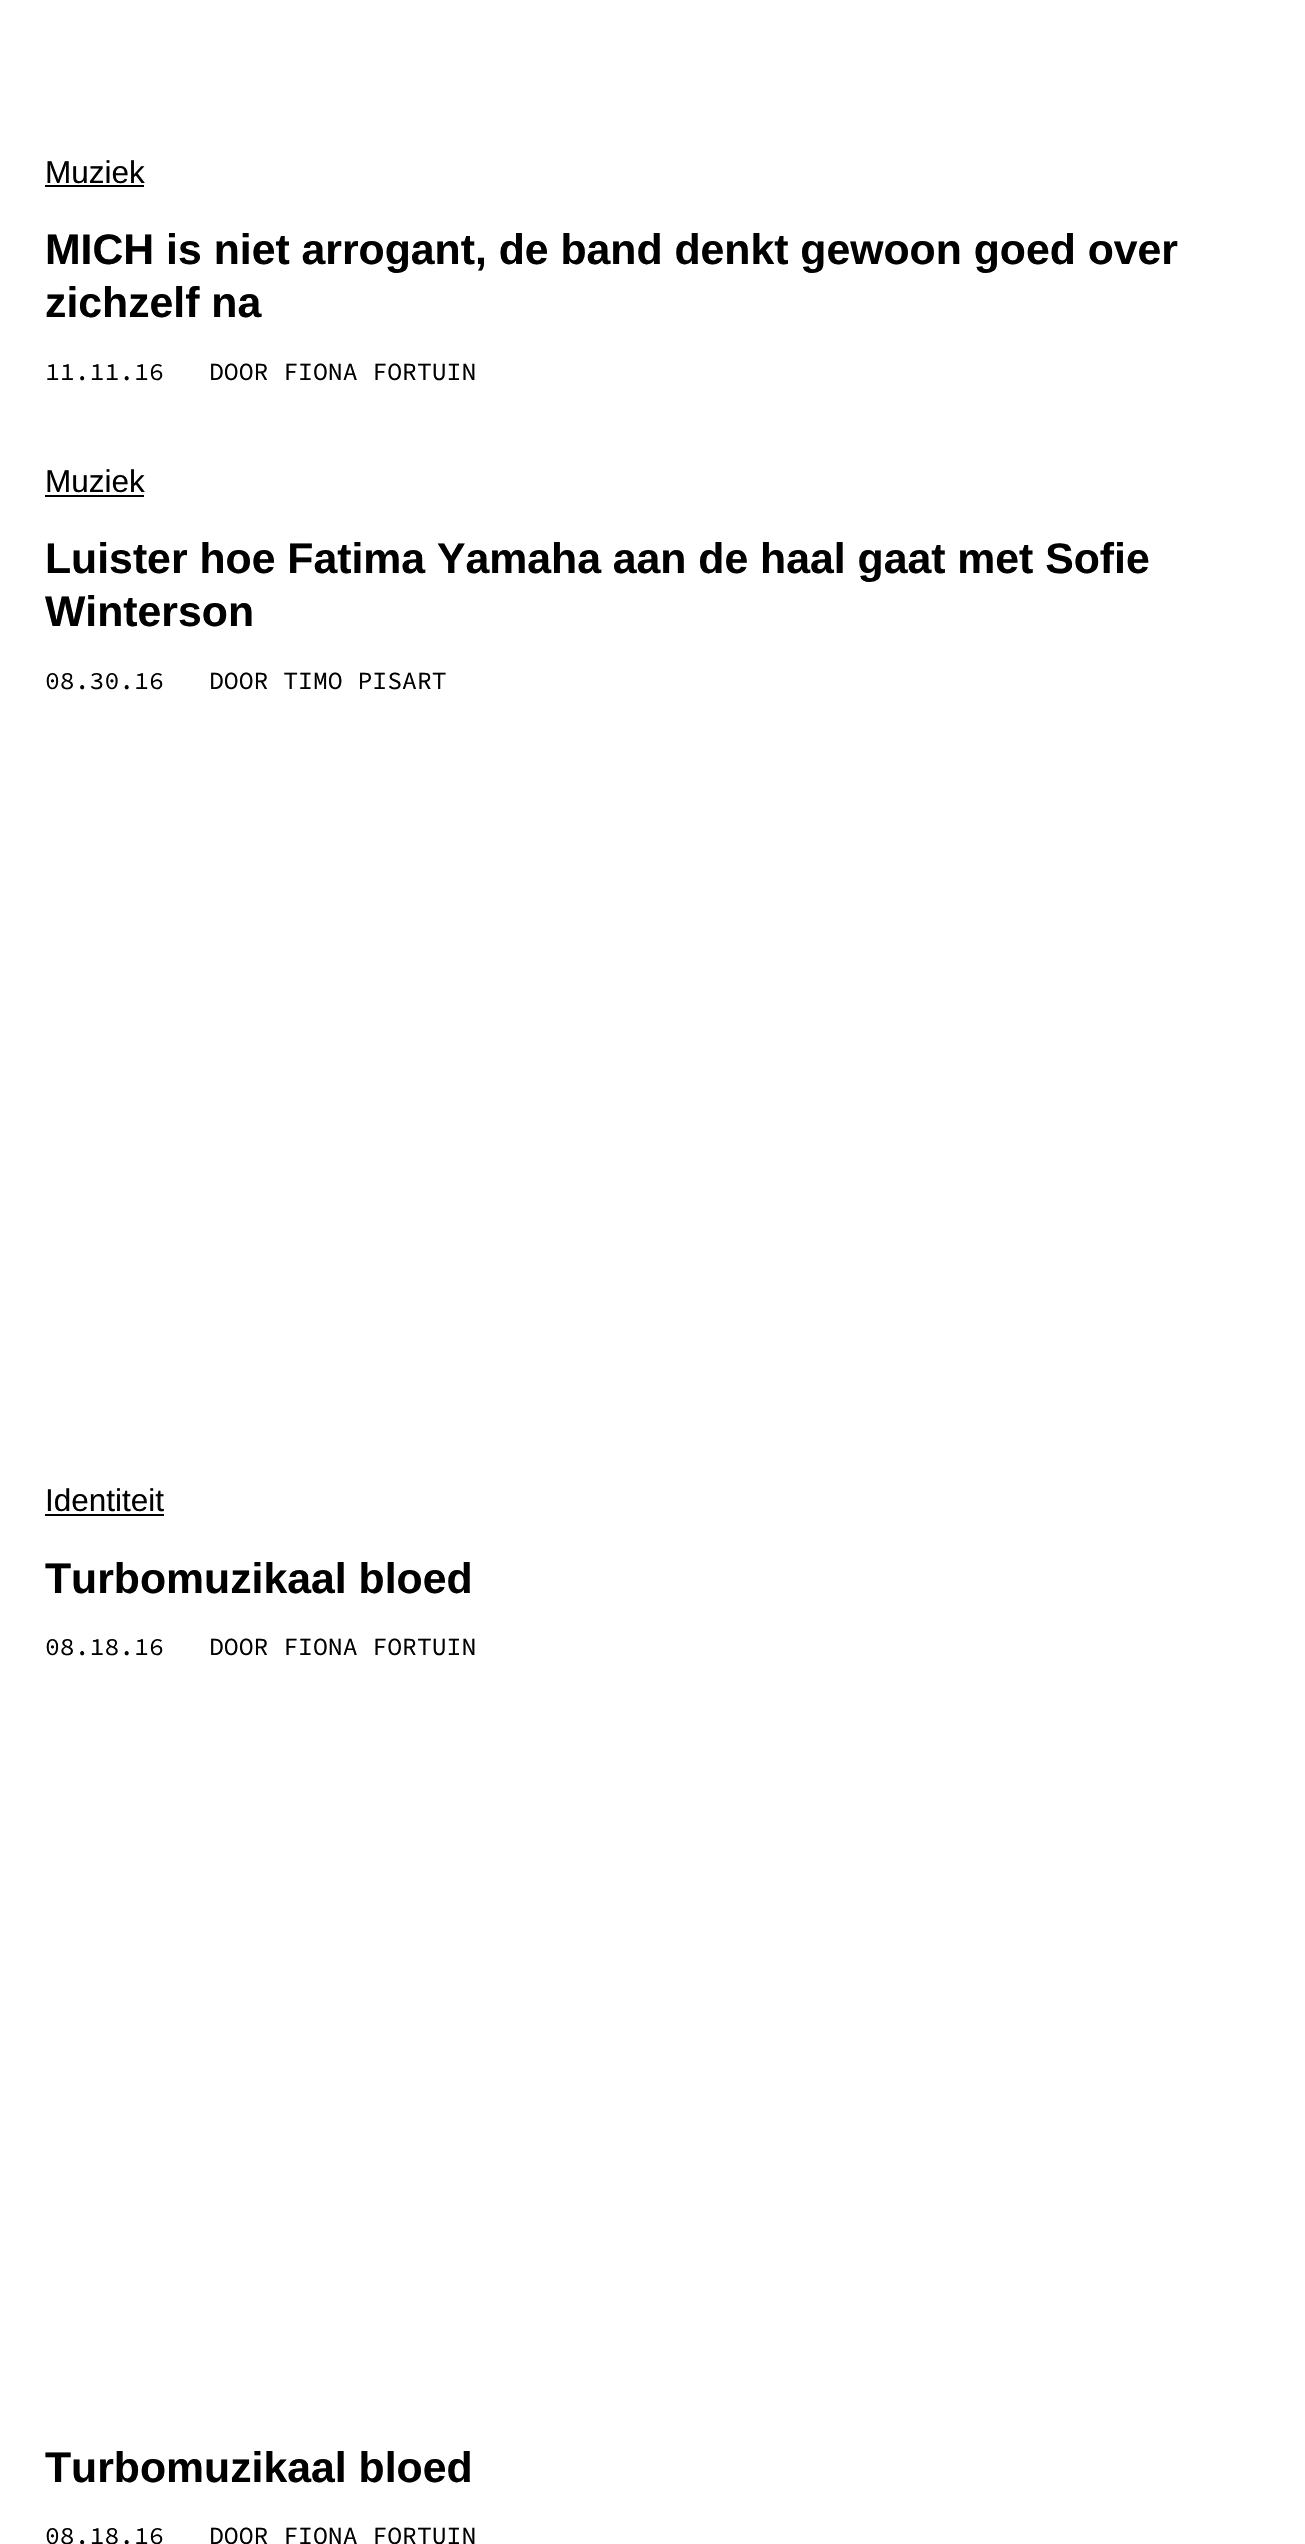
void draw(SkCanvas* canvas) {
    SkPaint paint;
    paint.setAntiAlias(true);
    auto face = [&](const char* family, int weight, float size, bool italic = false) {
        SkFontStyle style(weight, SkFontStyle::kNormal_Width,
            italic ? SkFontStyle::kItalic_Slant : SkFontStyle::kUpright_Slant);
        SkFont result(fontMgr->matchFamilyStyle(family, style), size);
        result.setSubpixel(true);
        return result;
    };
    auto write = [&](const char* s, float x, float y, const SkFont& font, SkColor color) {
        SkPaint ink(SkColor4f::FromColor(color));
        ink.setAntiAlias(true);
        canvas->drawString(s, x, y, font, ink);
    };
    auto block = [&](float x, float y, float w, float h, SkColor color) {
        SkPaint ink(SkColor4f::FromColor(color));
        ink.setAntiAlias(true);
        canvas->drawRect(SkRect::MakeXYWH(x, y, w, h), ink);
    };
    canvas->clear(SK_ColorWHITE);
    auto kFont1 = face("Liberation Sans", 400, 31.5f);
    write("Muziek", 45, 183, kFont1, SK_ColorBLACK);
    block(45, 185, 99, 2, SK_ColorBLACK);
    auto kFont2 = face("Liberation Sans", 700, 42.75f);
    write("MICH is niet arrogant, de band denkt gewoon goed over", 45, 264, kFont2, SK_ColorBLACK);
    write("zichzelf na", 45, 317, kFont2, SK_ColorBLACK);
    auto kFont3 = face("Source Code Pro", 400, 24.75f);
    write("11.11.16", 45, 380, kFont3, SK_ColorBLACK);
    write("DOOR FIONA FORTUIN", 209, 380, kFont3, SK_ColorBLACK);
    write("Muziek", 45, 492, kFont1, SK_ColorBLACK);
    block(45, 495, 99, 2, SK_ColorBLACK);
    write("Luister hoe Fatima Yamaha aan de haal gaat met Sofie", 45, 573, kFont2, SK_ColorBLACK);
    write("Winterson", 45, 626, kFont2, SK_ColorBLACK);
    write("08.30.16", 45, 689, kFont3, SK_ColorBLACK);
    write("DOOR TIMO PISART", 209, 689, kFont3, SK_ColorBLACK);
    write("Identiteit", 45, 1511, kFont1, SK_ColorBLACK);
    block(45, 1514, 119, 2, SK_ColorBLACK);
    write("Turbomuzikaal bloed", 45, 1593, kFont2, SK_ColorBLACK);
    write("08.18.16", 45, 1655, kFont3, SK_ColorBLACK);
    write("DOOR FIONA FORTUIN", 209, 1655, kFont3, SK_ColorBLACK);
    write("Turbomuzikaal bloed", 45, 2482, kFont2, SK_ColorBLACK);
    write("08.18.16", 45, 2544, kFont3, SK_ColorBLACK);
    write("DOOR FIONA FORTUIN", 209, 2544, kFont3, SK_ColorBLACK);
}
